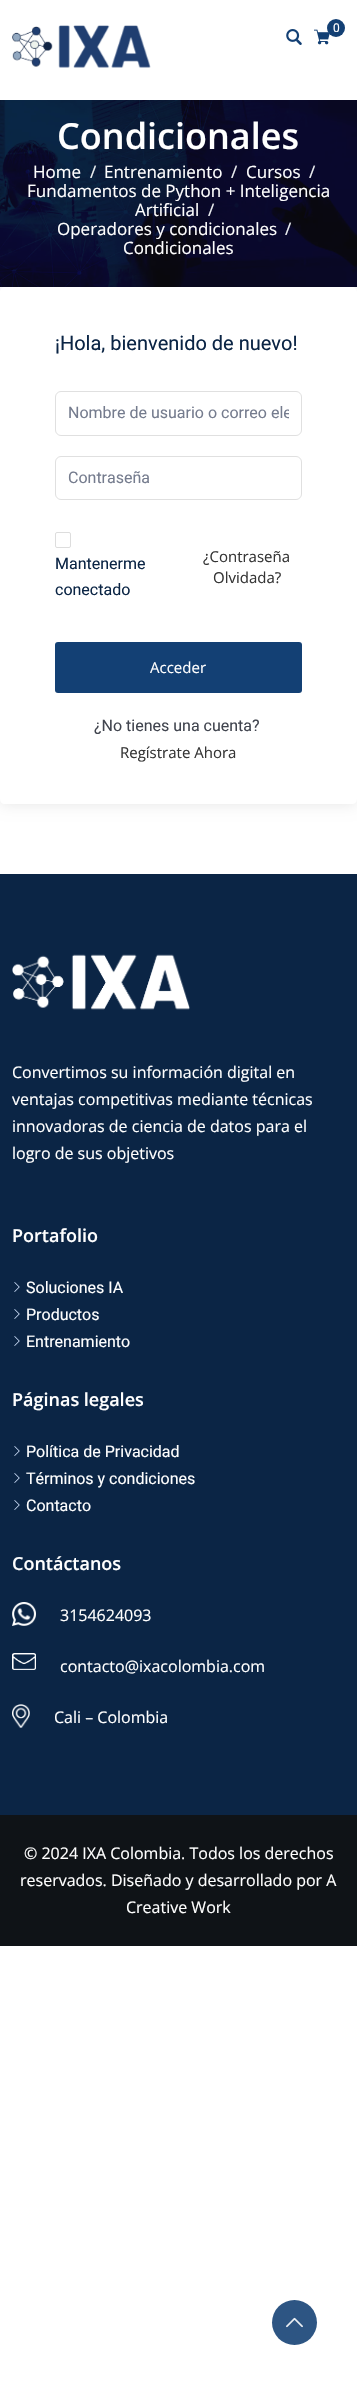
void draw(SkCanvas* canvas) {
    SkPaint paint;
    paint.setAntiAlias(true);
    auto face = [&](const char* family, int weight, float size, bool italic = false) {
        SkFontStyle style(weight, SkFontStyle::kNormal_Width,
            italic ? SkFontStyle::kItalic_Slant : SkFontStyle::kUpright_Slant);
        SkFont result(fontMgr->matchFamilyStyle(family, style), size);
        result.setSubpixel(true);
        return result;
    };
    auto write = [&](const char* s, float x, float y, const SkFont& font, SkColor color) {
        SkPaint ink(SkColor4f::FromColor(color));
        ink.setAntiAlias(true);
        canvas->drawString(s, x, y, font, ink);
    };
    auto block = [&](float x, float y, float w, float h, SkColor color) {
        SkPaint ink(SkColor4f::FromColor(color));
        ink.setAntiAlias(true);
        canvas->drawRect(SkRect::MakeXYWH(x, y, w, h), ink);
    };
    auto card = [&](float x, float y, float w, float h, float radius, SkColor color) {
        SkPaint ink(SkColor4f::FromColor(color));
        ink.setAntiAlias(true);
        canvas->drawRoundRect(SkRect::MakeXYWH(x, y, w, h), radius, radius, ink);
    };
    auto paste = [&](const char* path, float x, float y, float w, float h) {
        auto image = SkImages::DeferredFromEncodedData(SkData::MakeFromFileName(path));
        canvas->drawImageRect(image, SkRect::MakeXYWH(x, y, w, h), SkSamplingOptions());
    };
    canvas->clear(SK_ColorWHITE);
    paste("pic1.png", 12, 25, 139, 43);
    paste("pic2.png", 314, 29, 16, 16);
    paint.setColor(SkColorSetRGB(19, 64, 116));
    canvas->drawCircle(336, 28, 9, paint);
    auto kFont1 = face("Roboto", 400, 12);
    write("0", 333, 32, kFont1, SK_ColorWHITE);
    paste("pic3.png", 286, 29, 16, 16);
    canvas->save();
    canvas->clipPath(SkPathBuilder(SkPathFillType::kEvenOdd).moveTo(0, 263).lineTo(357, 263).lineTo(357, 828).lineTo(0, 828).close().moveTo(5, 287).lineTo(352, 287).cubicTo(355, 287, 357, 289, 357, 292).lineTo(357, 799).cubicTo(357, 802, 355, 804, 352, 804).lineTo(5, 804).cubicTo(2, 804, 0, 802, 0, 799).lineTo(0, 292).cubicTo(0, 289, 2, 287, 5, 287).close().detach(), true);
    paint.setColor(SkColorSetARGB(26, 0, 0, 0));
    paint.setMaskFilter(SkMaskFilter::MakeBlur(kNormal_SkBlurStyle, 7.5f));
    canvas->drawRoundRect(SkRect::MakeXYWH(0, 287, 357, 517), 5, 5, paint);
    paint.setMaskFilter(nullptr);
    canvas->restore();
    paste("pic4.png", 0, 100, 357, 187);
    block(0, 100, 357, 187, SkColorSetARGB(105, 2, 0, 0));
    auto kFont2 = face("Open Sans", 600, 36);
    write("Condicionales", 57, 149, kFont2, SK_ColorWHITE);
    auto kFont3 = face("Open Sans", 400, 17);
    write("Home", 33, 178, kFont3, SK_ColorWHITE);
    write("/", 90, 178, kFont3, SkColorSetRGB(237, 240, 242));
    write("Entrenamiento", 104, 178, kFont3, SK_ColorWHITE);
    write("/", 231, 178, kFont3, SkColorSetRGB(237, 240, 242));
    write("Cursos", 246, 178, kFont3, SK_ColorWHITE);
    write("/", 309, 178, kFont3, SkColorSetRGB(237, 240, 242));
    write("Fundamentos de Python + Inteligencia", 27, 197, kFont3, SK_ColorWHITE);
    write("Artificial", 135, 216, kFont3, SK_ColorWHITE);
    write("/", 208, 216, kFont3, SkColorSetRGB(237, 240, 242));
    write("Operadores y condicionales", 57, 235, kFont3, SK_ColorWHITE);
    write("/", 285, 235, kFont3, SkColorSetRGB(237, 240, 242));
    write("Condicionales", 123, 254, kFont3, SK_ColorWHITE);
    auto kFont4 = face("Roboto", 400, 20);
    write("¡Hola, bienvenido de nuevo!", 55, 350, kFont4, SkColorSetRGB(11, 37, 69));
    paint.setStyle(SkPaint::kStroke_Style);
    paint.setStrokeWidth(1);
    paint.setColor(SkColorSetRGB(224, 224, 224));
    canvas->drawRoundRect(SkRect::MakeXYWH(55.5f, 391.5f, 246, 44), 5.5f, 5.5f, paint);
    canvas->save();
    canvas->clipRect(SkRect::MakeXYWH(68, 403, 221, 19));
    auto kFont5 = face("Roboto", 400, 16);
    write("Nombre de usuario o correo ele", 68, 418, kFont5, SkColorSetRGB(117, 124, 142));
    canvas->restore();
    canvas->drawRoundRect(SkRect::MakeXYWH(55.5f, 456.5f, 246, 43), 5.5f, 5.5f, paint);
    write("Contraseña", 68, 483, kFont5, SkColorSetRGB(117, 124, 142));
    paint.setColor(SkColorSetRGB(221, 221, 221));
    canvas->drawRoundRect(SkRect::MakeXYWH(55.5f, 532.5f, 15, 15), 1.5f, 1.5f, paint);
    write("Mantenerme", 55, 569, kFont5, SkColorSetRGB(11, 37, 69));
    write("conectado", 55, 595, kFont5, SkColorSetRGB(11, 37, 69));
    auto kFont6 = face("Open Sans", 400, 15);
    write("¿Contraseña", 203, 562, kFont6, SkColorSetRGB(53, 53, 53));
    write("Olvidada?", 213, 583, kFont6, SkColorSetRGB(53, 53, 53));
    card(55, 642, 247, 51, 3, SkColorSetRGB(19, 64, 116));
    write("Acceder", 150, 673, kFont6, SK_ColorWHITE);
    write("¿No tienes una cuenta?", 94, 731, kFont5, SkColorSetRGB(65, 69, 79));
    write("Regístrate Ahora", 120, 758, kFont6, SkColorSetRGB(53, 53, 53));
    block(0, 874, 357, 941, SkColorSetRGB(11, 37, 69));
    paste("pic5.png", 12, 954, 178, 56);
    auto kFont7 = face("Open Sans", 400, 16);
    write("Convertimos su información digital en", 12, 1078, kFont7, SK_ColorWHITE);
    write("ventajas competitivas mediante técnicas", 12, 1105, kFont7, SK_ColorWHITE);
    write("innovadoras de ciencia de datos para el", 12, 1132, kFont7, SK_ColorWHITE);
    write("logro de sus objetivos", 12, 1159, kFont7, SK_ColorWHITE);
    auto kFont8 = face("Open Sans", 600, 18);
    write("Portafolio", 12, 1242, kFont8, SK_ColorWHITE);
    paste("pic6.png", 14, 1282, 6, 10);
    write("Soluciones IA", 26, 1293, kFont5, SK_ColorWHITE);
    paste("pic6.png", 14, 1309, 6, 10);
    write("Productos", 26, 1320, kFont5, SK_ColorWHITE);
    paste("pic6.png", 14, 1336, 6, 10);
    write("Entrenamiento", 26, 1347, kFont5, SK_ColorWHITE);
    write("Páginas legales", 12, 1406, kFont8, SK_ColorWHITE);
    paste("pic6.png", 14, 1446, 6, 10);
    write("Política de Privacidad", 26, 1457, kFont5, SK_ColorWHITE);
    paste("pic6.png", 14, 1473, 6, 10);
    write("Términos y condiciones", 26, 1484, kFont5, SK_ColorWHITE);
    paste("pic6.png", 14, 1500, 6, 10);
    write("Contacto", 26, 1511, kFont5, SK_ColorWHITE);
    write("Contáctanos", 12, 1570, kFont8, SK_ColorWHITE);
    paste("pic7.png", 12, 1602, 24, 24);
    write("3154624093", 60, 1621, kFont7, SK_ColorWHITE);
    paste("pic8.png", 12, 1653, 24, 17);
    write("contacto@ixacolombia.com", 60, 1672, kFont7, SK_ColorWHITE);
    paste("pic9.png", 12, 1704, 18, 24);
    write("Cali – Colombia", 54, 1723, kFont7, SK_ColorWHITE);
    block(0, 1815, 357, 131, SkColorSetRGB(15, 19, 23));
    write("© 2024 IXA Colombia. Todos los derechos", 24, 1859, kFont7, SK_ColorWHITE);
    write("reservados. Diseñado y desarrollado por A", 20, 1886, kFont7, SK_ColorWHITE);
    write("Creative Work", 126, 1913, kFont7, SK_ColorWHITE);
    paint.setStyle(SkPaint::kFill_Style);
    paint.setColor(SkColorSetRGB(45, 85, 131));
    canvas->drawCircle(294.5f, 2322.5f, 22.5f, paint);
    paste("pic10.png", 286, 2317, 17, 11);
}
